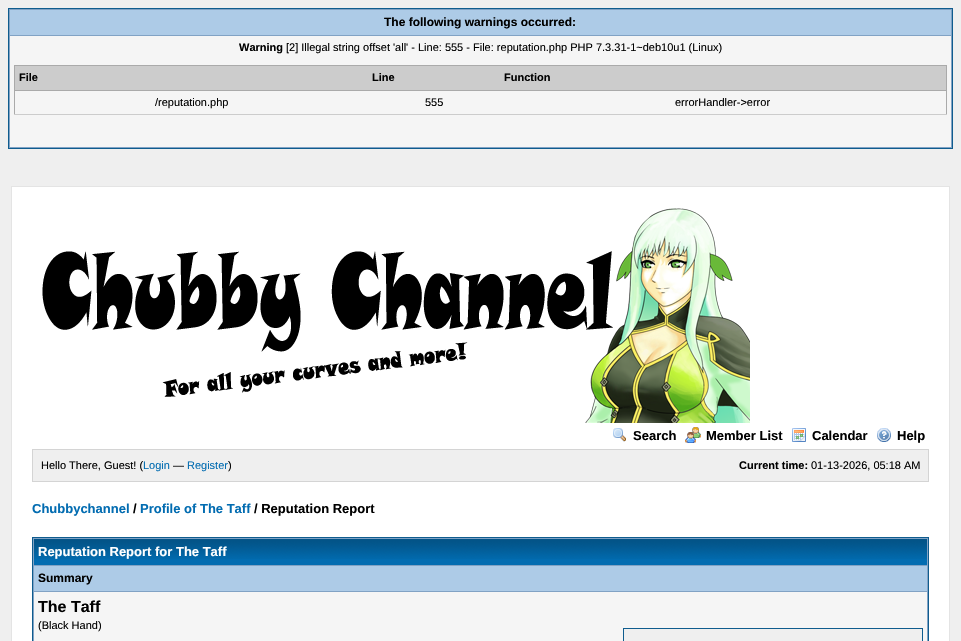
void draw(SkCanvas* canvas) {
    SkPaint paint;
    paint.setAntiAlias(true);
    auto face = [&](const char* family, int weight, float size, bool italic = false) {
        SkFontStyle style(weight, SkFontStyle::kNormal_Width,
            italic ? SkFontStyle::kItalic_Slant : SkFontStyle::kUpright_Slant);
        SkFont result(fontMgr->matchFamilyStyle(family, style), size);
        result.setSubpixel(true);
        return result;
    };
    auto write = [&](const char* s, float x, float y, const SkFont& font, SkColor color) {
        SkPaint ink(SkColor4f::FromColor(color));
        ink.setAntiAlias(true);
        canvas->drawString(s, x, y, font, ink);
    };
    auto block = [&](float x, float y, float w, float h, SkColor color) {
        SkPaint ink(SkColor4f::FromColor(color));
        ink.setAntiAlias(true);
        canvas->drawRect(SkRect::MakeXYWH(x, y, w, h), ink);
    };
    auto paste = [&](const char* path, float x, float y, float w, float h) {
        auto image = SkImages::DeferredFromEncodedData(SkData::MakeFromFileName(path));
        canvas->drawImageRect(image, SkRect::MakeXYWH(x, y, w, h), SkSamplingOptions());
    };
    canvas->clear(SkColorSetRGB(239, 239, 239));
    paint.setColor(SkColorSetRGB(129, 162, 196));
    canvas->drawRect(SkRect::MakeXYWH(8.5f, 8.5f, 944, 140), paint);
    paint.setStyle(SkPaint::kStroke_Style);
    paint.setStrokeWidth(1);
    paint.setColor(SkColorSetRGB(15, 92, 142));
    canvas->drawRect(SkRect::MakeXYWH(8.5f, 8.5f, 944, 140), paint);
    block(10, 10, 941, 25, SkColorSetRGB(173, 203, 231));
    auto kFont1 = face("Liberation Sans", 700, 12);
    write("The following warnings occurred:", 384, 26, kFont1, SK_ColorBLACK);
    block(10, 36, 941, 111, SkColorSetRGB(245, 245, 245));
    auto kFont2 = face("Liberation Sans", 700, 11);
    write("Warning", 239, 51, kFont2, SK_ColorBLACK);
    auto kFont3 = face("Liberation Sans", 400, 11);
    write("[2] Illegal string offset 'all' - Line: 555 - File: reputation.php PHP 7.3.31-1~deb10u1 (Linux)", 286, 51, kFont3, SK_ColorBLACK);
    block(14, 65, 933, 1, SkColorSetRGB(170, 170, 170));
    block(946, 65, 1, 50, SkColorSetRGB(170, 170, 170));
    block(14, 65, 1, 50, SkColorSetRGB(170, 170, 170));
    block(15, 66, 931, 24, SkColorSetRGB(204, 204, 204));
    write("File", 19, 81, kFont2, SK_ColorBLACK);
    write("Line", 372, 81, kFont2, SK_ColorBLACK);
    block(14, 90, 933, 1, SkColorSetRGB(170, 170, 170));
    write("Function", 504, 81, kFont2, SK_ColorBLACK);
    write("/reputation.php", 155, 106, kFont3, SK_ColorBLACK);
    write("555", 425, 106, kFont3, SK_ColorBLACK);
    block(14, 114, 933, 1, SkColorSetRGB(204, 204, 204));
    write("errorHandler->error", 675, 106, kFont3, SK_ColorBLACK);
    paint.setStyle(SkPaint::kFill_Style);
    paint.setColor(SK_ColorWHITE);
    canvas->drawRect(SkRect::MakeXYWH(11.5f, 186.5f, 938, 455), paint);
    paint.setStyle(SkPaint::kStroke_Style);
    paint.setColor(SkColorSetRGB(228, 228, 228));
    canvas->drawRect(SkRect::MakeXYWH(11.5f, 186.5f, 938, 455), paint);
    paste("pic1.png", 42, 208, 708, 215);
    paste("pic2.png", 613, 428, 13, 14);
    auto kFont4 = face("Liberation Sans", 700, 13);
    write("Search", 633, 440, kFont4, SK_ColorBLACK);
    paste("pic3.png", 685, 427, 16, 16);
    write("Member List", 706, 440, kFont4, SK_ColorBLACK);
    paste("pic4.png", 792, 428, 14, 14);
    write("Calendar", 812, 440, kFont4, SK_ColorBLACK);
    paste("pic5.png", 877, 428, 14, 14);
    write("Help", 897, 440, kFont4, SK_ColorBLACK);
    paint.setStyle(SkPaint::kFill_Style);
    paint.setColor(SkColorSetRGB(239, 239, 239));
    canvas->drawRect(SkRect::MakeXYWH(32.5f, 449.5f, 896, 32), paint);
    paint.setStyle(SkPaint::kStroke_Style);
    paint.setColor(SkColorSetRGB(212, 212, 212));
    canvas->drawRect(SkRect::MakeXYWH(32.5f, 449.5f, 896, 32), paint);
    write("Hello There, Guest! (", 41, 469, kFont3, SK_ColorBLACK);
    write("Login", 143, 469, kFont3, SkColorSetRGB(2, 108, 177));
    write("—", 173, 469, kFont3, SK_ColorBLACK);
    write("Register", 187, 469, kFont3, SkColorSetRGB(2, 108, 177));
    write(")", 228, 469, kFont3, SK_ColorBLACK);
    write("Current time:", 739, 469, kFont2, SK_ColorBLACK);
    write("01-13-2026, 05:18 AM", 811, 469, kFont3, SK_ColorBLACK);
    write("Chubbychannel", 32, 513, kFont4, SkColorSetRGB(2, 108, 177));
    write("/", 133, 513, kFont4, SK_ColorBLACK);
    write("Profile of The Taff", 140, 513, kFont4, SkColorSetRGB(2, 108, 177));
    write("/ Reputation Report", 254, 513, kFont4, SK_ColorBLACK);
    paint.setStyle(SkPaint::kFill_Style);
    paint.setColor(SkColorSetRGB(129, 162, 196));
    canvas->drawRect(SkRect::MakeXYWH(32.5f, 537.5f, 896, 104), paint);
    paint.setStyle(SkPaint::kStroke_Style);
    paint.setColor(SkColorSetRGB(15, 92, 142));
    canvas->drawRect(SkRect::MakeXYWH(32.5f, 537.5f, 896, 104), paint);
    block(34, 559, 893, 6, SkColorSetRGB(2, 108, 177));
    paste("pic6.png", 34, 539, 893, 20);
    write("Reputation Report for The Taff", 38, 556, kFont4, SK_ColorWHITE);
    block(34, 566, 893, 25, SkColorSetRGB(173, 203, 231));
    write("Summary", 38, 582, kFont1, SK_ColorBLACK);
    block(34, 592, 893, 49, SkColorSetRGB(245, 245, 245));
    auto kFont5 = face("Liberation Sans", 700, 16);
    write("The Taff", 38, 612, kFont5, SK_ColorBLACK);
    write("(Black Hand)", 38, 629, kFont3, SK_ColorBLACK);
    paint.setStyle(SkPaint::kFill_Style);
    paint.setColor(SkColorSetRGB(239, 239, 239));
    canvas->drawRect(SkRect::MakeXYWH(623.5f, 628.5f, 299, 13), paint);
    paint.setStyle(SkPaint::kStroke_Style);
    paint.setColor(SkColorSetRGB(15, 92, 142));
    canvas->drawRect(SkRect::MakeXYWH(623.5f, 628.5f, 299, 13), paint);
}
